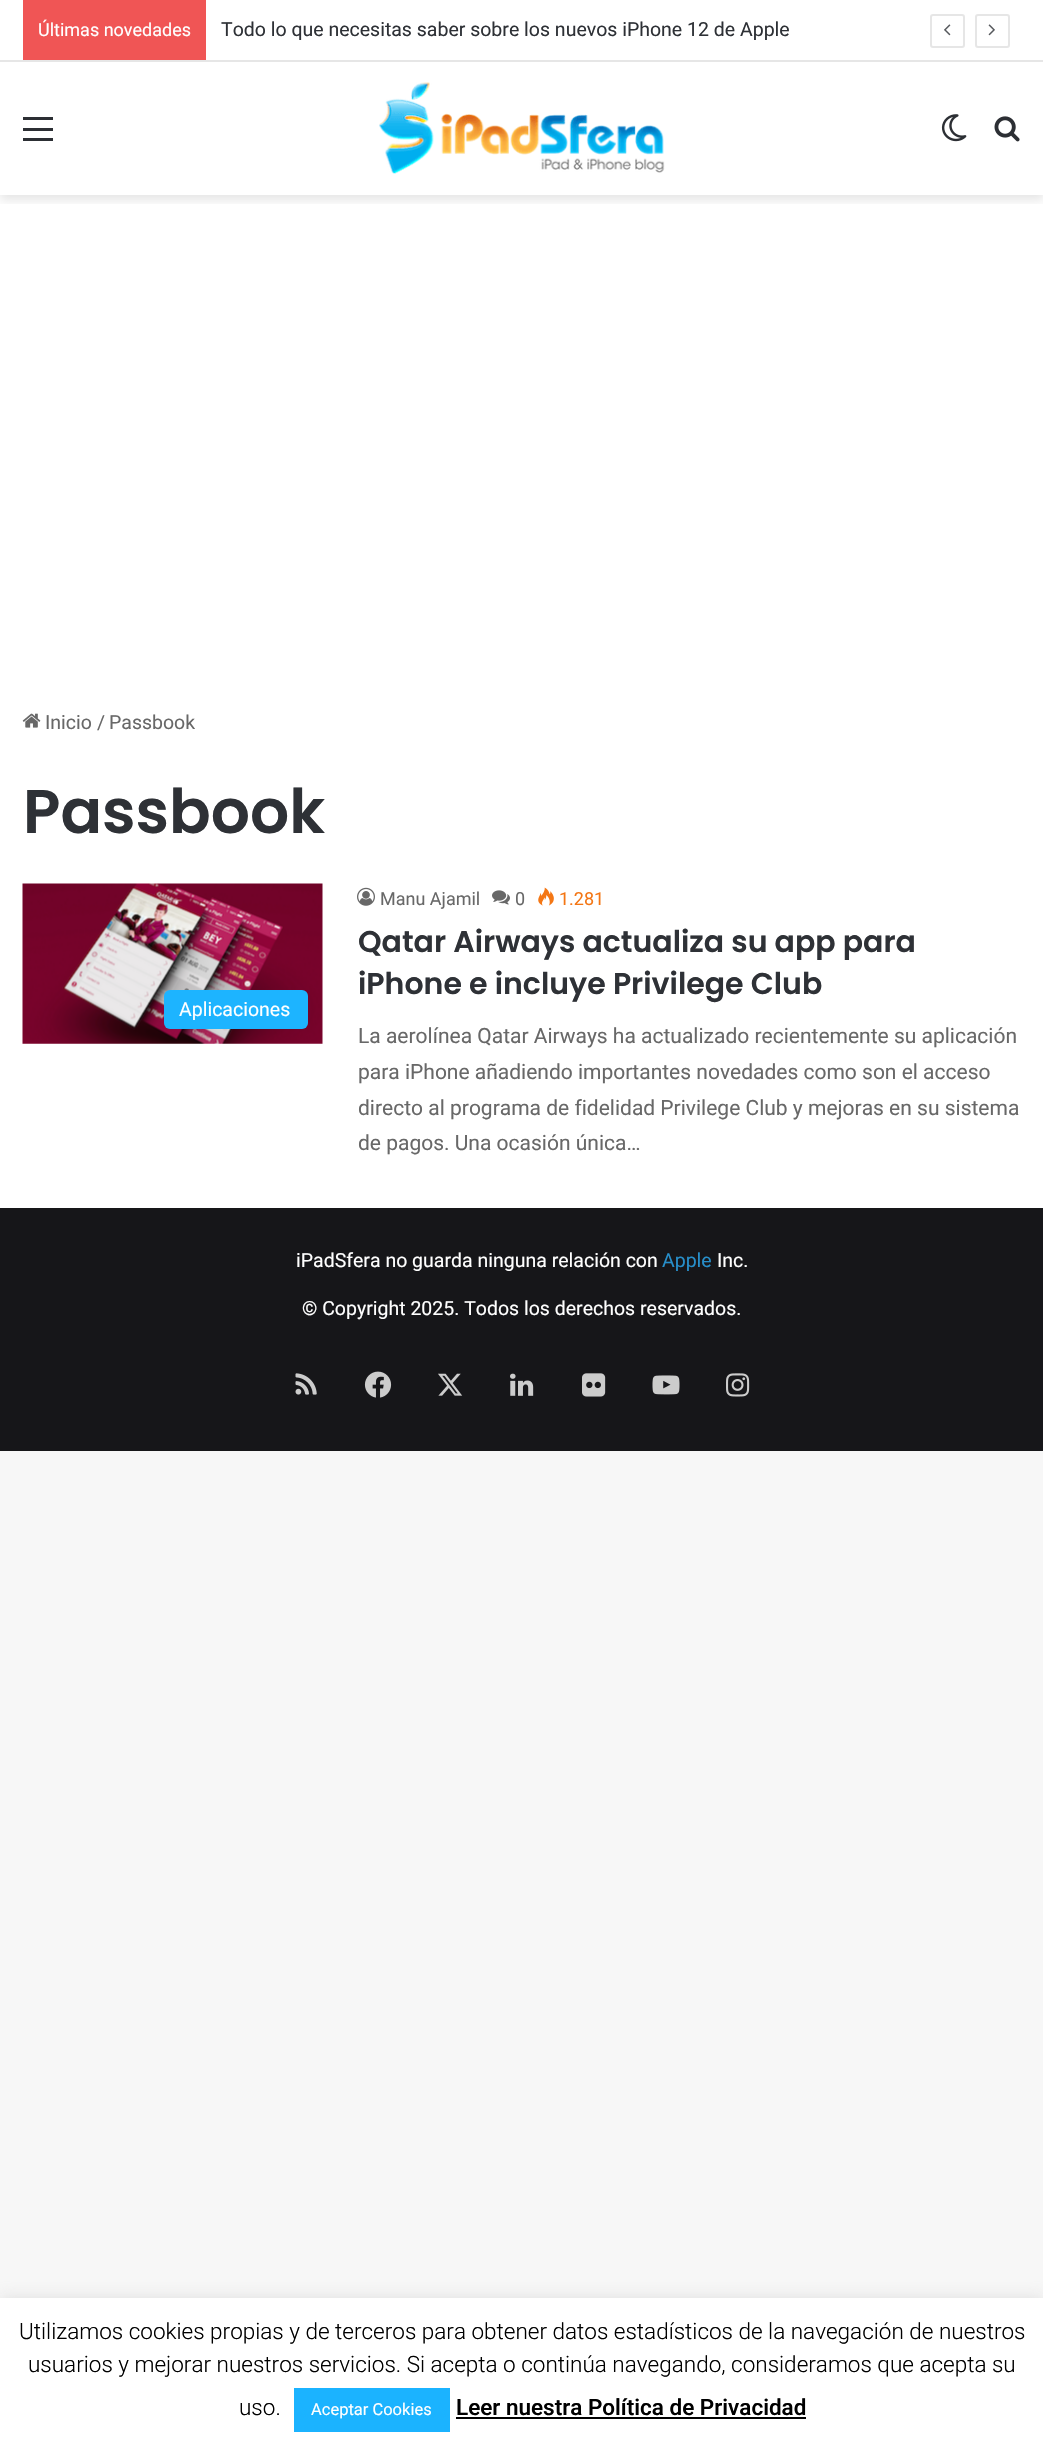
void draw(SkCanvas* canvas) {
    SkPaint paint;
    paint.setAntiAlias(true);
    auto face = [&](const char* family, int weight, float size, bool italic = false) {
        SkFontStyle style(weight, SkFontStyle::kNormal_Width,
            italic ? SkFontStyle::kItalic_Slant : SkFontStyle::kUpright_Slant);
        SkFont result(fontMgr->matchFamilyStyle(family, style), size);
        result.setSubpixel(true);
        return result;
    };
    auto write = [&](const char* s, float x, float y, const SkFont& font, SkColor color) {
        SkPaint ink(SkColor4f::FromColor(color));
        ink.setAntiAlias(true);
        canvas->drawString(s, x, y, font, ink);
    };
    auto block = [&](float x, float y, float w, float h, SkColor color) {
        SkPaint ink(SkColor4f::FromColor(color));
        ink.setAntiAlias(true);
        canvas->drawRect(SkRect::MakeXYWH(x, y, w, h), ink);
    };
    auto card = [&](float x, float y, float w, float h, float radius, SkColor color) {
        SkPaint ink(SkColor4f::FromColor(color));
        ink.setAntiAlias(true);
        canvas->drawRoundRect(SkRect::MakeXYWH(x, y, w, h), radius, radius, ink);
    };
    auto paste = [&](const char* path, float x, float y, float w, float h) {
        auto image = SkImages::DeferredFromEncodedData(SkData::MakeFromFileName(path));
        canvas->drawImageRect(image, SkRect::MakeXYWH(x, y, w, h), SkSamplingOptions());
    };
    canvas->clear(SkColorSetRGB(247, 247, 247));
    block(0, 62, 1043, 1146, SK_ColorWHITE);
    canvas->save();
    canvas->clipRect(SkRect::MakeXYWH(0, 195, 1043, 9));
    paint.setColor(SkColorSetARGB(26, 0, 0, 0));
    paint.setMaskFilter(SkMaskFilter::MakeBlur(kNormal_SkBlurStyle, 5));
    canvas->drawRect(SkRect::MakeXYWH(0, 66, 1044, 134), paint);
    paint.setMaskFilter(nullptr);
    canvas->restore();
    block(0, 0, 1043, 60, SK_ColorWHITE);
    block(0, 60, 1043, 2, SkColorSetRGB(230, 230, 230));
    block(23, 0, 183, 60, SkColorSetRGB(240, 85, 85));
    auto kFont1 = face("Roboto", 400, 18);
    write("Últimas novedades", 38, 36, kFont1, SK_ColorWHITE);
    auto kFont2 = face("Roboto", 400, 19.5f);
    write("Todo lo que necesitas saber sobre los nuevos iPhone 12 de Apple", 221, 36, kFont2, SkColorSetRGB(46, 49, 54));
    paint.setStyle(SkPaint::kStroke_Style);
    paint.setStrokeWidth(2);
    paint.setColor(SkColorSetRGB(230, 230, 230));
    canvas->drawRoundRect(SkRect::MakeXYWH(931, 15, 33, 32), 2, 2, paint);
    paste("pic1.png", 944, 24, 7, 12);
    canvas->drawRoundRect(SkRect::MakeXYWH(976, 15, 33, 32), 2, 2, paint);
    paste("pic2.png", 988, 24, 7, 12);
    block(23, 128, 30, 3, SkColorSetRGB(44, 47, 52));
    block(23, 117, 30, 3, SkColorSetRGB(44, 47, 52));
    block(23, 138, 30, 3, SkColorSetRGB(44, 47, 52));
    paste("pic3.png", 379, 82, 286, 92);
    paste("pic4.png", 941, 114, 26, 28);
    paste("pic5.png", 994, 116, 26, 26);
    paste("pic6.png", 22, 713, 19, 15);
    write("Inicio", 45, 729, kFont2, SkColorSetRGB(104, 104, 104));
    write("/", 97, 729, kFont2, SkColorSetRGB(104, 104, 104));
    write("Passbook", 109, 729, kFont2, SkColorSetRGB(104, 104, 104));
    auto kFont3 = face("Poppins", 600, 61.5f);
    write("Passbook", 23, 833, kFont3, SkColorSetRGB(46, 49, 54));
    paste("pic7.png", 22, 883, 301, 161);
    card(164, 990, 144, 39, 6, SkColorSetRGB(29, 180, 255));
    write("Aplicaciones", 179, 1016, kFont2, SK_ColorWHITE);
    paste("pic8.png", 357, 887, 18, 19);
    write("Manu Ajamil", 380, 905, kFont1, SkColorSetRGB(104, 104, 104));
    paste("pic9.png", 492, 890, 18, 15);
    write("0", 515, 905, kFont1, SkColorSetRGB(104, 104, 104));
    paste("pic10.png", 538, 887, 16, 19);
    write("1.281", 559, 905, kFont1, SkColorSetRGB(244, 118, 20));
    auto kFont4 = face("Poppins", 600, 30);
    write("Qatar Airways actualiza su app para", 358, 952, kFont4, SkColorSetRGB(46, 49, 54));
    write("iPhone e incluye Privilege Club", 358, 994, kFont4, SkColorSetRGB(46, 49, 54));
    auto kFont5 = face("Roboto", 400, 21);
    write("La aerolínea Qatar Airways ha actualizado recientemente su aplicación", 358, 1043, kFont5, SkColorSetRGB(104, 104, 104));
    write("para iPhone añadiendo importantes novedades como son el acceso", 358, 1079, kFont5, SkColorSetRGB(104, 104, 104));
    write("directo al programa de fidelidad Privilege Club y mejoras en su sistema", 358, 1115, kFont5, SkColorSetRGB(104, 104, 104));
    write("de pagos. Una ocasión única…", 358, 1150, kFont5, SkColorSetRGB(104, 104, 104));
    block(0, 1208, 1043, 243, SkColorSetRGB(22, 22, 25));
    write("iPadSfera no guarda ninguna relación con", 296, 1267, kFont2, SK_ColorWHITE);
    write("Apple", 662, 1267, kFont2, SkColorSetRGB(39, 142, 201));
    write("Inc.", 717, 1267, kFont2, SK_ColorWHITE);
    write("© Copyright 2025. Todos los derechos reservados.", 302, 1315, kFont2, SK_ColorWHITE);
    paste("pic11.png", 295, 1373, 22, 22);
    paste("pic12.png", 364, 1371, 28, 27);
    paste("pic13.png", 438, 1373, 25, 23);
    paste("pic14.png", 510, 1373, 24, 23);
    paste("pic15.png", 582, 1373, 24, 24);
    paste("pic16.png", 652, 1375, 28, 20);
    paste("pic17.png", 726, 1373, 24, 24);
    paint.setStyle(SkPaint::kFill_Style);
    paint.setColor(SkColorSetARGB(77, 172, 171, 171));
    paint.setMaskFilter(SkMaskFilter::MakeBlur(kNormal_SkBlurStyle, 7.5f));
    canvas->drawRect(SkRect::MakeXYWH(0, 2297, 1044, 151), paint);
    paint.setMaskFilter(nullptr);
    block(0, 2298, 1043, 151, SK_ColorWHITE);
    auto kFont6 = face("Roboto", 300, 22.5f);
    write("Utilizamos cookies propias y de terceros para obtener datos estadísticos de la navegación de nuestros", 19, 2339, kFont6, SK_ColorBLACK);
    write("usuarios y mejorar nuestros servicios. Si acepta o continúa navegando, consideramos que acepta su", 28, 2372, kFont6, SK_ColorBLACK);
    write("uso.", 239, 2415, kFont6, SK_ColorBLACK);
    block(294, 2388, 156, 44, SkColorSetRGB(27, 179, 255));
    auto kFont7 = face("Roboto", 400, 16.5f);
    write("Aceptar Cookies", 311, 2415, kFont7, SK_ColorWHITE);
    auto kFont8 = face("Roboto", 500, 22.5f);
    write("Leer nuestra Política de Privacidad", 456, 2415, kFont8, SK_ColorBLACK);
    block(456, 2417, 350, 2, SK_ColorBLACK);
}
